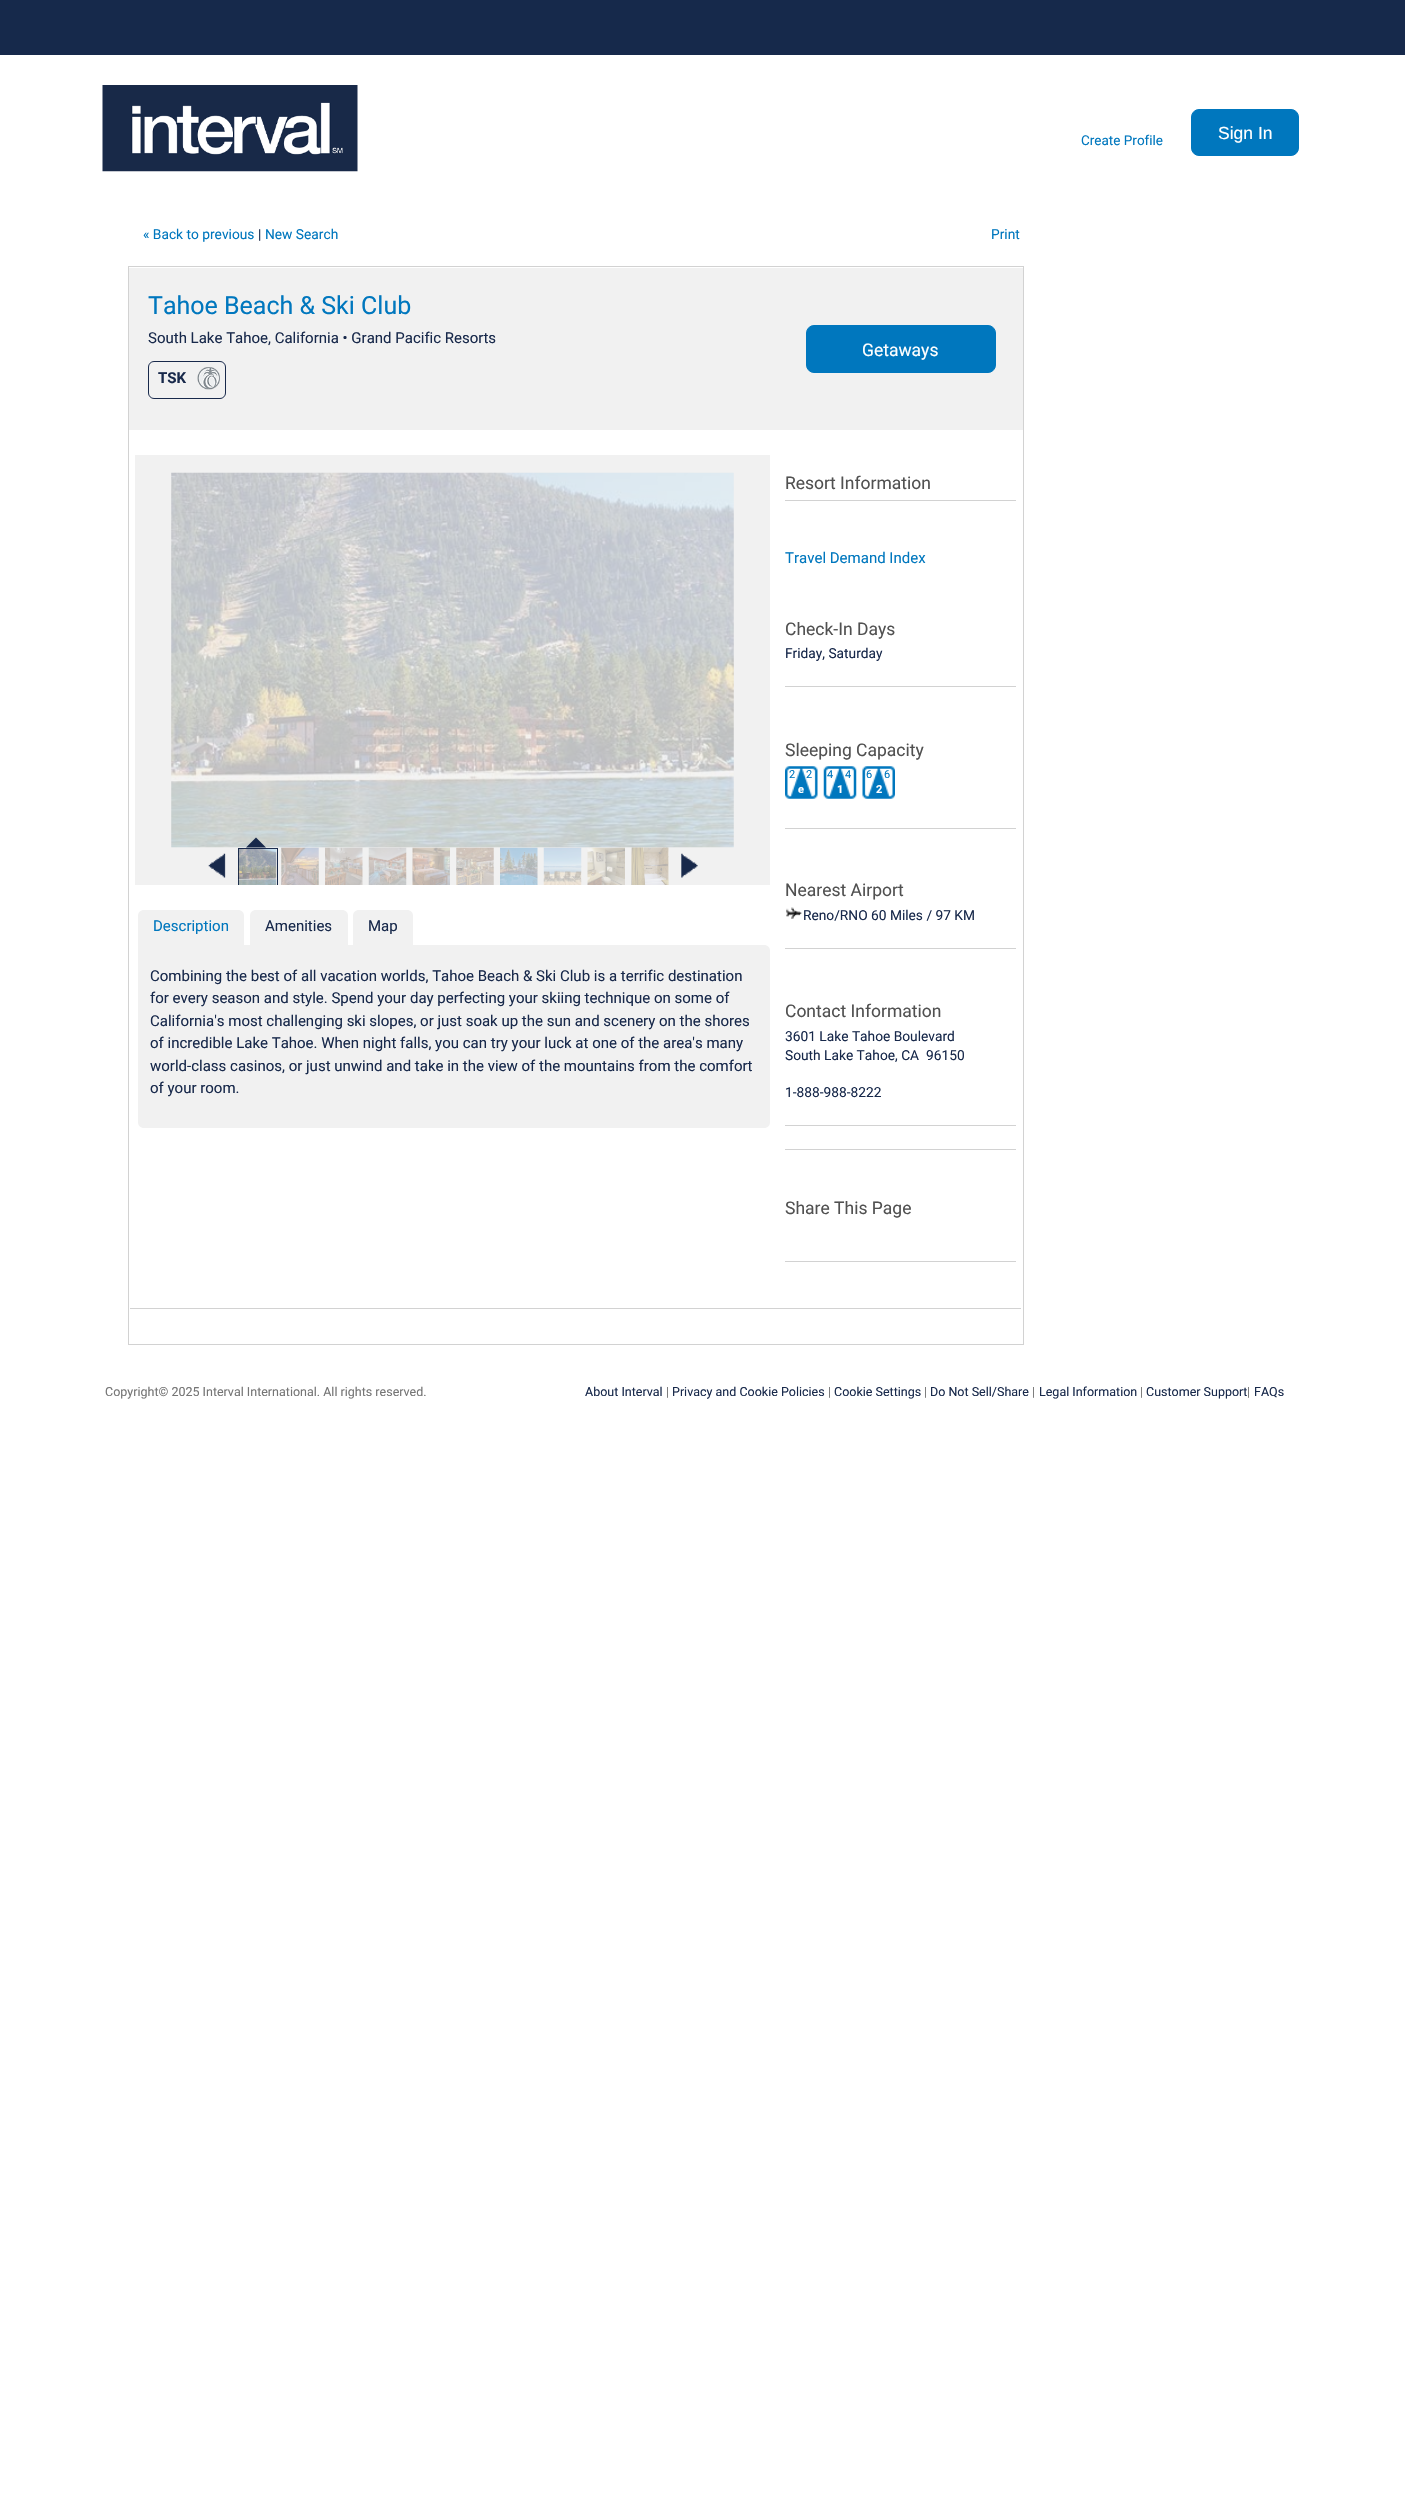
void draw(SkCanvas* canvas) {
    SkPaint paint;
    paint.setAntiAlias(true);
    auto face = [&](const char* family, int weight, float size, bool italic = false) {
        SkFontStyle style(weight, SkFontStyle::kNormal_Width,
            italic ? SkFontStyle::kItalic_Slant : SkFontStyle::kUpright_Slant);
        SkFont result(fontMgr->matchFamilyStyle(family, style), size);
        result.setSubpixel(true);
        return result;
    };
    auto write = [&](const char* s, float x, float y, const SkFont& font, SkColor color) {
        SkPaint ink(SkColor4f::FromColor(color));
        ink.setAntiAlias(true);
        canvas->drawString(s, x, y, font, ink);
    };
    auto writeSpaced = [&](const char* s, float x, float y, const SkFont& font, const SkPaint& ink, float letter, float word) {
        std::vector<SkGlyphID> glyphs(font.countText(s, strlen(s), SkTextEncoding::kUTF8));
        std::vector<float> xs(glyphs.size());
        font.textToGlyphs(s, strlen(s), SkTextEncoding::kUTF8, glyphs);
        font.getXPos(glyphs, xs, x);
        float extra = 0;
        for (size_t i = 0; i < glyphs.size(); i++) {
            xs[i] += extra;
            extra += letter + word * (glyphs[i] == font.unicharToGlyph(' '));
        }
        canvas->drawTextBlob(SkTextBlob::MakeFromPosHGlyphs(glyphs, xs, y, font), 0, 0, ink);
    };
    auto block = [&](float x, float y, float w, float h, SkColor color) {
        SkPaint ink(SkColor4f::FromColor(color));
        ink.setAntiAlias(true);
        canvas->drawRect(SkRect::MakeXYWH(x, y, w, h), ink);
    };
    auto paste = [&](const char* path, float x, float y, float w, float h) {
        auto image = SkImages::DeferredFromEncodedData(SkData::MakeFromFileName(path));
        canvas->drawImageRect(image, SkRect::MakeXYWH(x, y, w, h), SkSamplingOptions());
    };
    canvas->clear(SK_ColorWHITE);
    block(0, 0, 1405, 55, SkColorSetRGB(22, 41, 75));
    paste("pic1.png", 102, 85, 256, 87);
    auto kFont1 = face("Roboto", 400, 13.5f);
    write("Create Profile", 1081, 145, kFont1, SkColorSetRGB(0, 119, 190));
    paint.setColor(SkColorSetRGB(0, 119, 190));
    canvas->drawRoundRect(SkRect::MakeXYWH(1191.5f, 109.5f, 107, 46), 7.5f, 7.5f, paint);
    paint.setStyle(SkPaint::kStroke_Style);
    paint.setStrokeWidth(1);
    canvas->drawRoundRect(SkRect::MakeXYWH(1191.5f, 109.5f, 107, 46), 7.5f, 7.5f, paint);
    auto kFont2 = face("Liberation Sans", 400, 17.5f);
    write("Sign In", 1218, 139, kFont2, SK_ColorWHITE);
    auto kFont3 = face("Roboto", 400, 13.75f);
    write("« Back to previous", 143, 239, kFont3, SkColorSetRGB(0, 119, 190));
    write("|", 258, 239, kFont3, SkColorSetRGB(24, 41, 75));
    write("New Search", 265, 239, kFont3, SkColorSetRGB(0, 119, 190));
    write("Print", 991, 239, kFont3, SkColorSetRGB(0, 119, 190));
    block(128, 266, 896, 1, SkColorSetRGB(210, 210, 210));
    block(1023, 266, 1, 1079, SkColorSetRGB(210, 210, 210));
    block(128, 1344, 896, 1, SkColorSetRGB(210, 210, 210));
    block(128, 266, 1, 1079, SkColorSetRGB(210, 210, 210));
    block(129, 268, 894, 162, SkColorSetRGB(241, 241, 241));
    auto kFont4 = face("Roboto", 400, 25);
    write("Tahoe Beach & Ski Club", 148, 314, kFont4, SkColorSetRGB(0, 119, 190));
    auto kFont5 = face("Roboto", 400, 15);
    write("South Lake Tahoe, California • Grand Pacific Resorts", 148, 343, kFont5, SkColorSetRGB(24, 41, 75));
    paint.setColor(SkColorSetRGB(24, 41, 75));
    canvas->drawRoundRect(SkRect::MakeXYWH(148.5f, 361.5f, 77, 37), 5.5f, 5.5f, paint);
    auto kFont6 = face("Roboto", 700, 15);
    write("TSK", 158, 383, kFont6, SkColorSetRGB(24, 41, 75));
    paste("pic2.png", 197, 367, 23, 23);
    paint.setStyle(SkPaint::kFill_Style);
    paint.setColor(SkColorSetRGB(0, 119, 190));
    canvas->drawRoundRect(SkRect::MakeXYWH(806.5f, 325.5f, 189, 47), 7.5f, 7.5f, paint);
    paint.setStyle(SkPaint::kStroke_Style);
    canvas->drawRoundRect(SkRect::MakeXYWH(806.5f, 325.5f, 189, 47), 7.5f, 7.5f, paint);
    auto kFont7 = face("Roboto", 400, 17.5f);
    write("Getaways", 862, 356, kFont7, SK_ColorWHITE);
    block(135, 455, 635, 430, SkColorSetRGB(241, 241, 241));
    paste("pic3.png", 171, 472, 563, 376);
    paint.setStyle(SkPaint::kFill_Style);
    paint.setColor(SkColorSetRGB(24, 41, 75));
    canvas->drawPath(SkPathBuilder().moveTo(266, 847.5f).lineTo(246, 847.5f).lineTo(256, 837.5f).close().detach(), paint);
    paste("pic4.png", 208, 853, 18, 25);
    canvas->save();
    canvas->clipRect(SkRect::MakeXYWH(238, 848, 431, 37));
    paint.setStyle(SkPaint::kStroke_Style);
    canvas->drawRect(SkRect::MakeXYWH(238.5f, 848.5f, 39, 39), paint);
    canvas->restore();
    paste("pic5.png", 238, 848, 39, 37);
    paste("pic6.png", 281, 847, 38, 38);
    paste("pic7.png", 325, 847, 38, 38);
    paste("pic8.png", 368, 847, 39, 38);
    paste("pic9.png", 412, 847, 38, 38);
    paste("pic10.png", 456, 847, 38, 38);
    paste("pic11.png", 500, 847, 38, 38);
    paste("pic12.png", 543, 847, 39, 38);
    paste("pic13.png", 587, 847, 38, 38);
    paste("pic14.png", 631, 847, 38, 38);
    paste("pic15.png", 681, 853, 17, 25);
    paint.setStyle(SkPaint::kFill_Style);
    paint.setColor(SkColorSetRGB(241, 241, 241));
    canvas->drawPath(SkPathBuilder().moveTo(144, 910).lineTo(238, 910).cubicTo(241.5f, 910, 244, 912.5f, 244, 916).lineTo(244, 945).lineTo(138, 945).lineTo(138, 916).cubicTo(138, 912.5f, 140.5f, 910, 144, 910).close().detach(), paint);
    write("Description", 153, 931, kFont5, SkColorSetRGB(0, 119, 190));
    canvas->drawPath(SkPathBuilder().moveTo(256, 910).lineTo(342, 910).cubicTo(345.5f, 910, 348, 912.5f, 348, 916).lineTo(348, 945).lineTo(250, 945).lineTo(250, 916).cubicTo(250, 912.5f, 252.5f, 910, 256, 910).close().detach(), paint);
    write("Amenities", 265, 931, kFont5, SkColorSetRGB(24, 41, 75));
    canvas->drawPath(SkPathBuilder().moveTo(359, 910).lineTo(407, 910).cubicTo(410.5f, 910, 413, 912.5f, 413, 916).lineTo(413, 945).lineTo(353, 945).lineTo(353, 916).cubicTo(353, 912.5f, 355.5f, 910, 359, 910).close().detach(), paint);
    write("Map", 368, 931, kFont5, SkColorSetRGB(24, 41, 75));
    canvas->drawPath(SkPathBuilder().moveTo(138, 945).lineTo(764, 945).cubicTo(767.5f, 945, 770, 947.5f, 770, 951).lineTo(770, 1122).cubicTo(770, 1125.5f, 767.5f, 1128, 764, 1128).lineTo(144, 1128).cubicTo(140.5f, 1128, 138, 1125.5f, 138, 1122).close().detach(), paint);
    write("Combining the best of all vacation worlds, Tahoe Beach & Ski Club is a terrific destination", 150, 981, kFont5, SkColorSetRGB(24, 41, 75));
    write("for every season and style. Spend your day perfecting your skiing technique on some of", 150, 1003, kFont5, SkColorSetRGB(24, 41, 75));
    write("California's most challenging ski slopes, or just soak up the sun and scenery on the shores", 150, 1026, kFont5, SkColorSetRGB(24, 41, 75));
    write("of incredible Lake Tahoe. When night falls, you can try your luck at one of the area's many", 150, 1048, kFont5, SkColorSetRGB(24, 41, 75));
    write("world-class casinos, or just unwind and take in the view of the mountains from the comfort", 150, 1071, kFont5, SkColorSetRGB(24, 41, 75));
    write("of your room.", 150, 1093, kFont5, SkColorSetRGB(24, 41, 75));
    write("Resort Information", 785, 489, kFont7, SkColorSetRGB(81, 81, 81));
    block(785, 500, 231, 1, SkColorSetRGB(210, 210, 210));
    block(785, 1149, 231, 1, SkColorSetRGB(210, 210, 210));
    write("Travel Demand Index", 785, 563, kFont5, SkColorSetRGB(0, 119, 190));
    block(785, 686, 231, 1, SkColorSetRGB(210, 210, 210));
    write("Check-In Days", 785, 635, kFont7, SkColorSetRGB(81, 81, 81));
    write("Friday, Saturday", 785, 658, kFont3, SkColorSetRGB(24, 41, 75));
    block(785, 828, 231, 1, SkColorSetRGB(210, 210, 210));
    write("Sleeping Capacity", 785, 756, kFont7, SkColorSetRGB(81, 81, 81));
    paste("pic16.png", 785, 766, 33, 33);
    auto kFont8 = face("Roboto", 400, 11);
    paint.setColor(SkColorSetRGB(0, 119, 190));
    writeSpaced("2", 789, 778, kFont8, paint, -1, 0);
    writeSpaced("2", 806, 778, kFont8, paint, -1, 0);
    auto kFont9 = face("Roboto", 700, 11);
    write("e", 798, 793, kFont9, SK_ColorWHITE);
    paste("pic17.png", 823, 766, 34, 33);
    writeSpaced("4", 827, 778, kFont8, paint, -1, 0);
    writeSpaced("4", 845, 778, kFont8, paint, -1, 0);
    write("1", 837, 793, kFont9, SK_ColorWHITE);
    paste("pic18.png", 862, 766, 33, 33);
    writeSpaced("6", 866, 778, kFont8, paint, -1, 0);
    writeSpaced("6", 884, 778, kFont8, paint, -1, 0);
    write("2", 876, 793, kFont9, SK_ColorWHITE);
    block(785, 948, 231, 1, SkColorSetRGB(210, 210, 210));
    write("Nearest Airport", 785, 896, kFont7, SkColorSetRGB(81, 81, 81));
    paste("pic19.png", 786, 907, 16, 12);
    write("Reno/RNO 60 Miles / 97 KM", 803, 920, kFont3, SkColorSetRGB(24, 41, 75));
    block(785, 1125, 231, 1, SkColorSetRGB(210, 210, 210));
    write("Contact Information", 785, 1017, kFont7, SkColorSetRGB(81, 81, 81));
    write("3601 Lake Tahoe Boulevard", 785, 1041, kFont3, SkColorSetRGB(24, 41, 75));
    write("South Lake Tahoe, CA", 785, 1060, kFont3, SkColorSetRGB(24, 41, 75));
    write("96150", 926, 1060, kFont3, SkColorSetRGB(24, 41, 75));
    write("1-888-988-8222", 785, 1097, kFont3, SkColorSetRGB(24, 41, 75));
    block(785, 1261, 231, 1, SkColorSetRGB(210, 210, 210));
    write("Share This Page", 785, 1214, kFont7, SkColorSetRGB(81, 81, 81));
    block(130, 1308, 891, 1, SkColorSetRGB(210, 210, 210));
    auto kFont10 = face("Roboto", 400, 12.5f);
    write("Copyright© 2025 Interval International. All rights reserved.", 105, 1396, kFont10, SkColorSetRGB(117, 117, 117));
    write("About Interval", 585, 1396, kFont10, SkColorSetRGB(24, 41, 75));
    write("|", 666, 1396, kFont10, SkColorSetRGB(117, 117, 117));
    write("Privacy and Cookie Policies", 672, 1396, kFont10, SkColorSetRGB(24, 41, 75));
    write("|", 828, 1396, kFont10, SkColorSetRGB(117, 117, 117));
    write("Cookie Settings", 834, 1396, kFont10, SkColorSetRGB(24, 41, 75));
    write("|", 924, 1396, kFont10, SkColorSetRGB(117, 117, 117));
    write("Do Not Sell/Share", 930, 1396, kFont10, SkColorSetRGB(24, 41, 75));
    write("|", 1032, 1396, kFont10, SkColorSetRGB(117, 117, 117));
    write("Legal Information", 1039, 1396, kFont10, SkColorSetRGB(24, 41, 75));
    write("|", 1140, 1396, kFont10, SkColorSetRGB(117, 117, 117));
    write("Customer Support", 1146, 1396, kFont10, SkColorSetRGB(24, 41, 75));
    write("|", 1247, 1396, kFont10, SkColorSetRGB(117, 117, 117));
    write("FAQs", 1254, 1396, kFont10, SkColorSetRGB(24, 41, 75));
}
